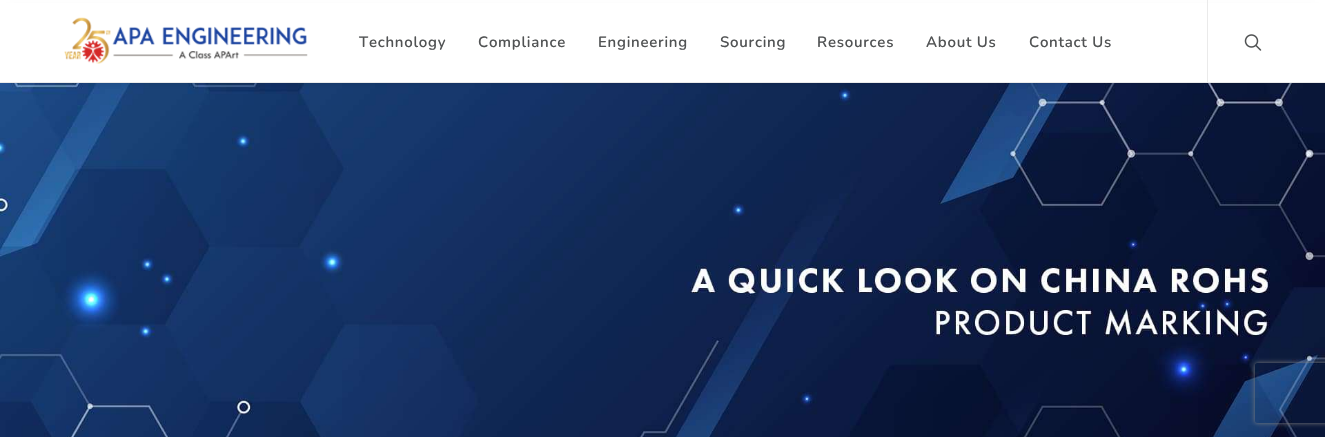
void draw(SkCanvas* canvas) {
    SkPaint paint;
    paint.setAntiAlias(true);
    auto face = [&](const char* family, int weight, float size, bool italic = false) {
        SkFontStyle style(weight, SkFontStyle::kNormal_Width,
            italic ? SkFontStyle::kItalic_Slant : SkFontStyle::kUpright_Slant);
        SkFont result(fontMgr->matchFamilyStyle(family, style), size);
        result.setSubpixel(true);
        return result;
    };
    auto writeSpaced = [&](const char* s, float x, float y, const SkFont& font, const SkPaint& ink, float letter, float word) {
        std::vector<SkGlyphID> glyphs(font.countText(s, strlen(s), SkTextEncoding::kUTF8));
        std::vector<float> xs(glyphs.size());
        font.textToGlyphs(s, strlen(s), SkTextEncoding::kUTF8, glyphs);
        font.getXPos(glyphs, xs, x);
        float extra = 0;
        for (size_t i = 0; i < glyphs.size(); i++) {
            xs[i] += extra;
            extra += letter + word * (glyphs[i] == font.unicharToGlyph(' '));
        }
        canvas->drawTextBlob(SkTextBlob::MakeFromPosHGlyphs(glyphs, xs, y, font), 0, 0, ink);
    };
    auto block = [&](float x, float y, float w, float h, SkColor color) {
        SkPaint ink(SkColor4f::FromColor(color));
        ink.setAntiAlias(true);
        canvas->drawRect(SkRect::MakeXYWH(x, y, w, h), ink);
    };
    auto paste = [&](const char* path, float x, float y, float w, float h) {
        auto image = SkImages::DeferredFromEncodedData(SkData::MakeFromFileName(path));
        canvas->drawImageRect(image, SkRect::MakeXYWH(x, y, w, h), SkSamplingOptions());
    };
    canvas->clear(SK_ColorWHITE);
    paste("pic3.png", 0, 83, 1325, 354);
    paint.setColor(SkColorSetARGB(153, 0, 0, 0));
    paint.setMaskFilter(SkMaskFilter::MakeBlur(kNormal_SkBlurStyle, 5));
    canvas->drawRect(SkRect::MakeXYWH(10, 14, 1305, 63), paint);
    paint.setMaskFilter(nullptr);
    block(0, 3, 1325, 79, SK_ColorWHITE);
    block(0, 82, 1325, 1, SkColorSetRGB(234, 234, 234));
    paste("pic1.png", 64, 17, 244, 47);
    auto kFont1 = face("Nunito", 600, 15);
    paint.setColor(SkColorSetRGB(81, 83, 84));
    writeSpaced("Technology", 359, 47, kFont1, paint, 0.75f, 0);
    writeSpaced("Compliance", 478, 47, kFont1, paint, 0.75f, 0);
    writeSpaced("Engineering", 598, 47, kFont1, paint, 0.75f, 0);
    writeSpaced("Sourcing", 720, 47, kFont1, paint, 0.75f, 0);
    writeSpaced("Resources", 817, 47, kFont1, paint, 0.75f, 0);
    writeSpaced("About Us", 926, 47, kFont1, paint, 0.75f, 0);
    writeSpaced("Contact Us", 1029, 47, kFont1, paint, 0.75f, 0);
    block(1207, 0, 1, 82, SkColorSetRGB(234, 234, 234));
    paste("pic2.png", 1244, 34, 18, 17);
    canvas->save();
    canvas->clipPath(SkPathBuilder(SkPathFillType::kEvenOdd).moveTo(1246, 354).lineTo(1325, 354).lineTo(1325, 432).lineTo(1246, 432).close().moveTo(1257, 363).lineTo(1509, 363).cubicTo(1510, 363, 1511, 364, 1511, 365).lineTo(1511, 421).cubicTo(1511, 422, 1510, 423, 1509, 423).lineTo(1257, 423).cubicTo(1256, 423, 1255, 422, 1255, 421).lineTo(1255, 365).cubicTo(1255, 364, 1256, 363, 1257, 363).close().detach(), true);
    paint.setColor(SkColorSetRGB(128, 128, 128));
    paint.setMaskFilter(SkMaskFilter::MakeBlur(kNormal_SkBlurStyle, 2.5f));
    canvas->drawRoundRect(SkRect::MakeXYWH(1255, 363, 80, 60), 2, 2, paint);
    paint.setMaskFilter(nullptr);
    canvas->restore();
}
